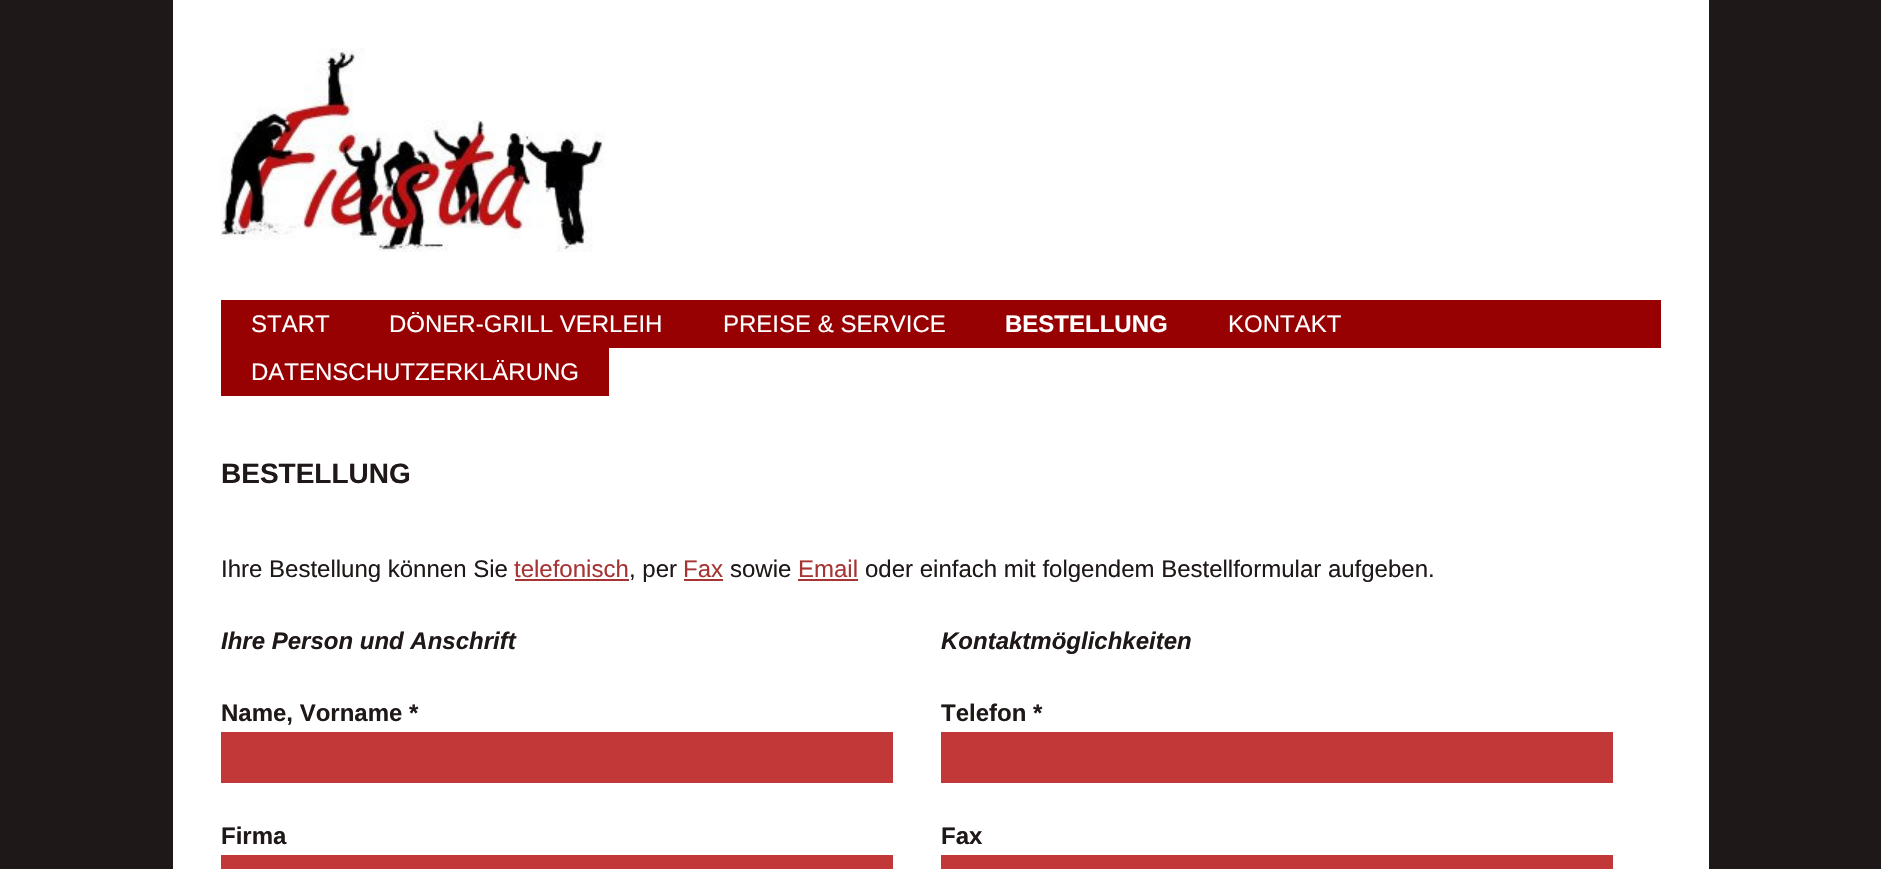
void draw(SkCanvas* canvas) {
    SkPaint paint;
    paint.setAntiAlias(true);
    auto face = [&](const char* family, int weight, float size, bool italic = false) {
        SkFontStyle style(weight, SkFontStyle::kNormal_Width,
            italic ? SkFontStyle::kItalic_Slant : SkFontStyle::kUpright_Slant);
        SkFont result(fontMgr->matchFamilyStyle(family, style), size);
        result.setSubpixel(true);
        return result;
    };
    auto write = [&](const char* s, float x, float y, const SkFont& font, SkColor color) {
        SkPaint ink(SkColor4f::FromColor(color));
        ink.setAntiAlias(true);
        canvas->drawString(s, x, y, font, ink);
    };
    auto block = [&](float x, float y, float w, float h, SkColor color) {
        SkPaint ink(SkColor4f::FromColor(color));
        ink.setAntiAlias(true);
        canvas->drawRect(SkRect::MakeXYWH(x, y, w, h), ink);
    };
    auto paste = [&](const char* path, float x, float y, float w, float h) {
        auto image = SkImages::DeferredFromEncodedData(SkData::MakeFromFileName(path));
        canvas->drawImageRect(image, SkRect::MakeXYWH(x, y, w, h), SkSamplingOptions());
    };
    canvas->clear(SkColorSetRGB(31, 24, 24));
    block(173, 0, 1536, 869, SK_ColorWHITE);
    paste("pic1.png", 220, 48, 385, 204);
    block(221, 300, 1440, 48, SkColorSetRGB(152, 1, 1));
    auto kFont1 = face("Liberation Sans", 400, 24);
    write("START", 251, 332, kFont1, SK_ColorWHITE);
    write("DÖNER-GRILL VERLEIH", 389, 332, kFont1, SK_ColorWHITE);
    write("PREISE & SERVICE", 723, 332, kFont1, SK_ColorWHITE);
    auto kFont2 = face("Liberation Sans", 700, 24);
    write("BESTELLUNG", 1005, 332, kFont2, SK_ColorWHITE);
    write("KONTAKT", 1228, 332, kFont1, SK_ColorWHITE);
    block(221, 348, 388, 48, SkColorSetRGB(152, 1, 1));
    write("DATENSCHUTZERKLÄRUNG", 251, 380, kFont1, SK_ColorWHITE);
    auto kFont3 = face("Liberation Sans", 700, 28);
    write("BESTELLUNG", 221, 483, kFont3, SkColorSetRGB(31, 24, 24));
    write("Ihre Bestellung können Sie", 221, 577, kFont1, SkColorSetRGB(31, 24, 24));
    write("telefonisch", 514, 577, kFont1, SkColorSetRGB(167, 52, 52));
    block(515, 579, 114, 2, SkColorSetRGB(167, 52, 52));
    write(", per", 629, 577, kFont1, SkColorSetRGB(31, 24, 24));
    write("Fax", 683, 577, kFont1, SkColorSetRGB(167, 52, 52));
    block(684, 579, 39, 2, SkColorSetRGB(167, 52, 52));
    write("sowie", 730, 577, kFont1, SkColorSetRGB(31, 24, 24));
    write("Email", 798, 577, kFont1, SkColorSetRGB(167, 52, 52));
    block(798, 579, 60, 2, SkColorSetRGB(167, 52, 52));
    write("oder einfach mit folgendem Bestellformular aufgeben.", 865, 577, kFont1, SkColorSetRGB(31, 24, 24));
    auto kFont4 = face("Liberation Sans", 700, 24, true);
    write("Ihre Person und Anschrift", 221, 649, kFont4, SkColorSetRGB(31, 24, 24));
    write("Name, Vorname *", 221, 721, kFont2, SkColorSetRGB(31, 24, 24));
    block(221, 732, 672, 51, SkColorSetRGB(194, 55, 55));
    write("Firma", 221, 844, kFont2, SkColorSetRGB(31, 24, 24));
    block(221, 855, 672, 14, SkColorSetRGB(194, 55, 55));
    write("Kontaktmöglichkeiten", 941, 649, kFont4, SkColorSetRGB(31, 24, 24));
    write("Telefon *", 941, 721, kFont2, SkColorSetRGB(31, 24, 24));
    block(941, 732, 672, 51, SkColorSetRGB(194, 55, 55));
    write("Fax", 941, 844, kFont2, SkColorSetRGB(31, 24, 24));
    block(941, 855, 672, 14, SkColorSetRGB(194, 55, 55));
}
